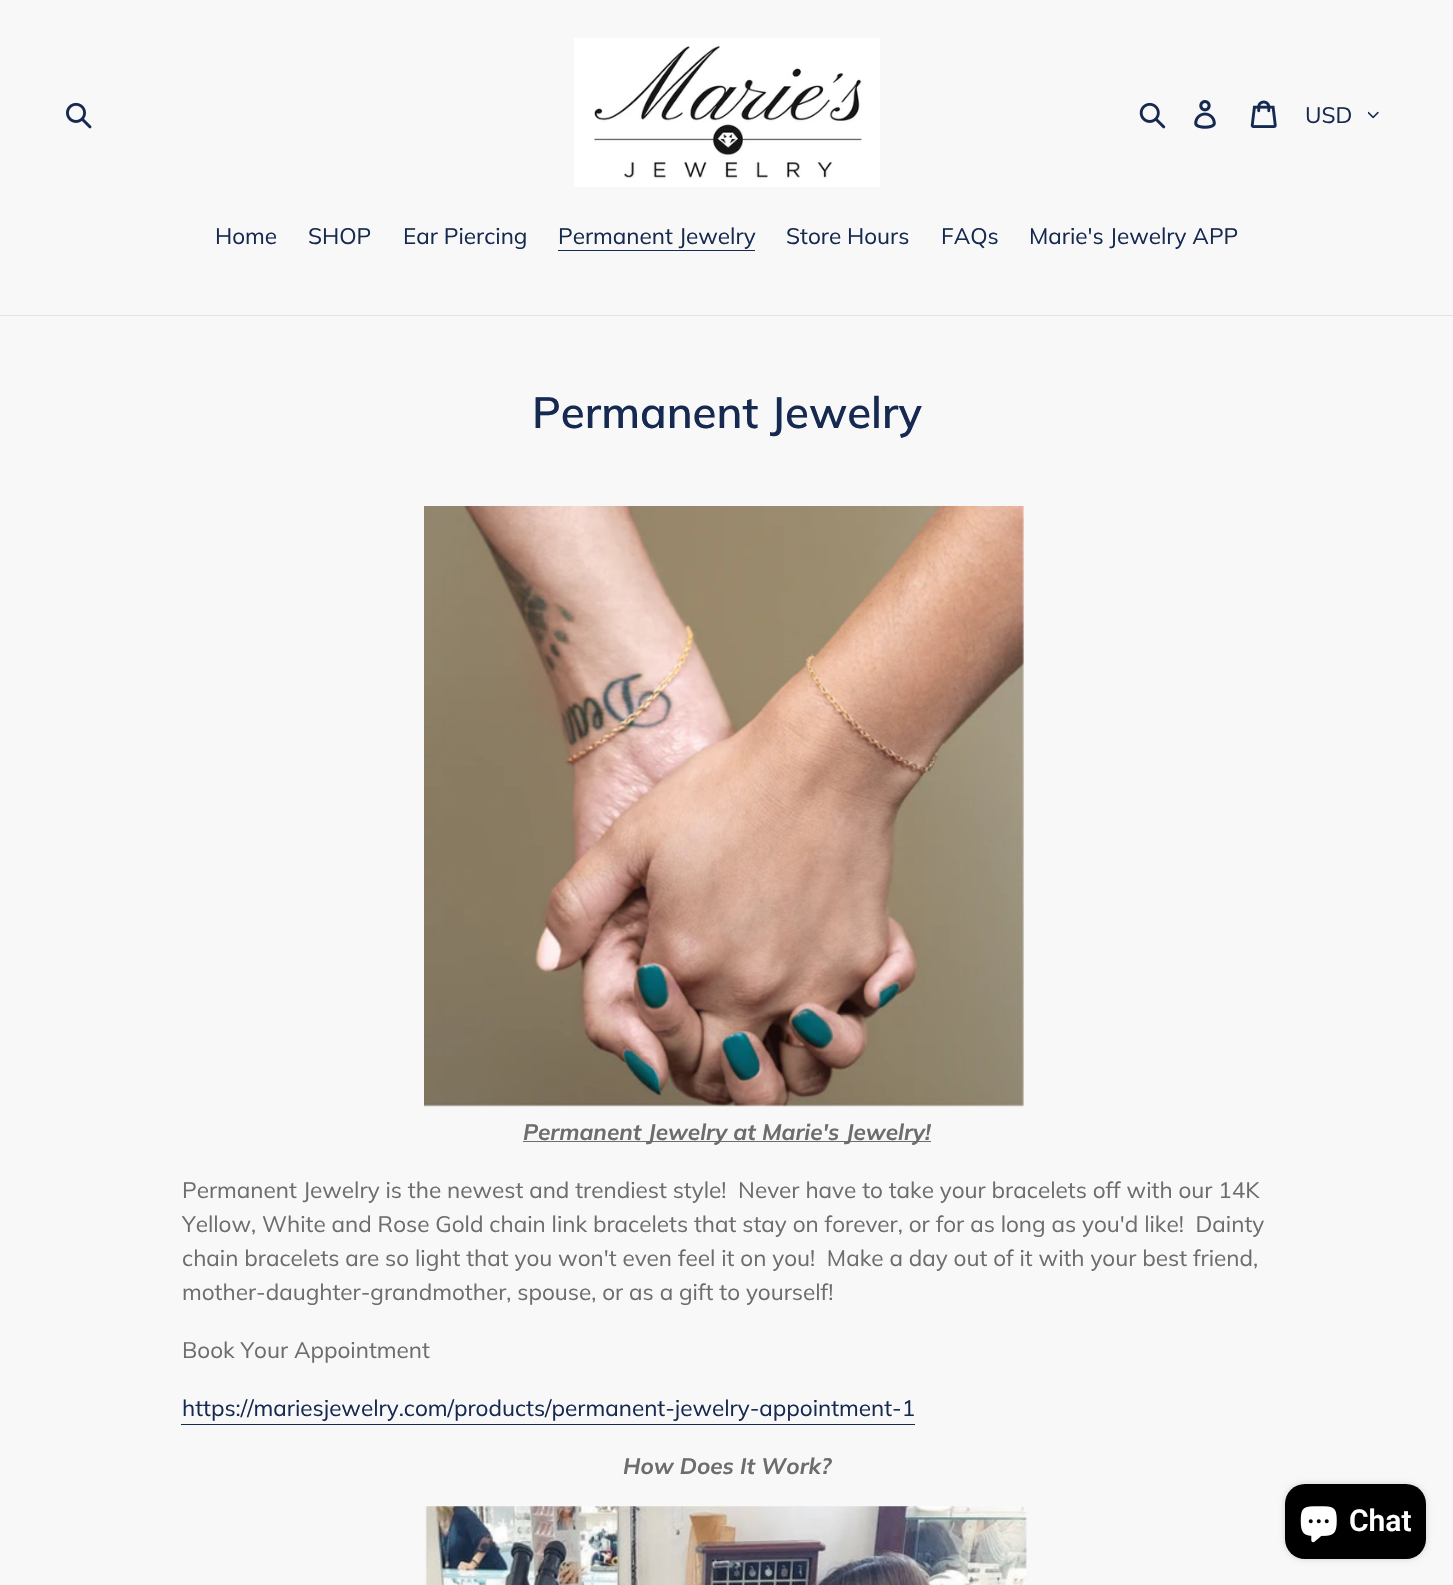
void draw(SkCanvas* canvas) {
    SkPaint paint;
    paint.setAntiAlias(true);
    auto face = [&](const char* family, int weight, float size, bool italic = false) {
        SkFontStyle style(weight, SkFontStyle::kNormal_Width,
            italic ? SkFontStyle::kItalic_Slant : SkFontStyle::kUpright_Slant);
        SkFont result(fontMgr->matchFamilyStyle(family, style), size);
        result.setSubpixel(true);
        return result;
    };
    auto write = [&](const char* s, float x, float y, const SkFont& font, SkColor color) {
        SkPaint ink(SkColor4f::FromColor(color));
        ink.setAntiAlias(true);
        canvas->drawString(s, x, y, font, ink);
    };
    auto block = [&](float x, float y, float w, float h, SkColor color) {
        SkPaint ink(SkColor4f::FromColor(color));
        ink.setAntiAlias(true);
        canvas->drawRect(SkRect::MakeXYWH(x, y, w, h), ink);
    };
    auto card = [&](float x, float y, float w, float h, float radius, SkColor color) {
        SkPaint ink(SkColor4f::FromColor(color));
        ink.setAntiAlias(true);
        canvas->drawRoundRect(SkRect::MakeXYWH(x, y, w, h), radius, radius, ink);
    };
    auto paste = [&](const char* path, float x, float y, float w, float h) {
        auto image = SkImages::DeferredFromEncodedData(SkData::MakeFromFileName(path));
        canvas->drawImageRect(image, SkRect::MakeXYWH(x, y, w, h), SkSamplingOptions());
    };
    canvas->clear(SkColorSetRGB(248, 248, 248));
    paste("pic1.png", 66, 102, 26, 27);
    paste("pic2.png", 574, 38, 306, 149);
    paste("pic3.png", 1139, 102, 27, 27);
    paste("pic4.png", 1194, 100, 22, 29);
    paste("pic5.png", 1250, 100, 27, 28);
    auto kFont1 = face("Muli", 400, 22.5f);
    write("USD", 1305, 123, kFont1, SkColorSetRGB(22, 41, 80));
    paste("pic6.png", 1368, 111, 11, 8);
    block(0, 315, 1453, 1, SkColorSetRGB(228, 228, 228));
    write("Home", 215, 244, kFont1, SkColorSetRGB(22, 41, 80));
    write("SHOP", 308, 244, kFont1, SkColorSetRGB(22, 41, 80));
    write("Ear Piercing", 403, 244, kFont1, SkColorSetRGB(22, 41, 80));
    write("Permanent Jewelry", 558, 244, kFont1, SkColorSetRGB(22, 41, 80));
    block(558, 250, 197, 1, SkColorSetRGB(22, 41, 80));
    write("Store Hours", 786, 244, kFont1, SkColorSetRGB(22, 41, 80));
    write("FAQs", 941, 244, kFont1, SkColorSetRGB(22, 41, 80));
    write("Marie's Jewelry APP", 1029, 244, kFont1, SkColorSetRGB(22, 41, 80));
    auto kFont2 = face("Muli", 600, 43.75f);
    write("Permanent Jewelry", 532, 428, kFont2, SkColorSetRGB(22, 41, 80));
    paste("pic7.png", 424, 506, 600, 601);
    block(523, 1141, 408, 1, SkColorSetRGB(109, 109, 109));
    auto kFont3 = face("Muli", 700, 22.5f, true);
    write("Permanent Jewelry at Marie's Jewelry!", 523, 1140, kFont3, SkColorSetRGB(109, 109, 109));
    write("Permanent Jewelry is the newest and trendiest style!  Never have to take your bracelets off with our 14K", 182, 1198, kFont1, SkColorSetRGB(109, 109, 109));
    write("Yellow, White and Rose Gold chain link bracelets that stay on forever, or for as long as you'd like!  Dainty", 182, 1232, kFont1, SkColorSetRGB(109, 109, 109));
    write("chain bracelets are so light that you won't even feel it on you!  Make a day out of it with your best friend,", 182, 1266, kFont1, SkColorSetRGB(109, 109, 109));
    write("mother-daughter-grandmother, spouse, or as a gift to yourself!", 182, 1300, kFont1, SkColorSetRGB(109, 109, 109));
    write("Book Your Appointment", 182, 1358, kFont1, SkColorSetRGB(109, 109, 109));
    write("https://mariesjewelry.com/products/permanent-jewelry-appointment-1", 182, 1416, kFont1, SkColorSetRGB(22, 41, 80));
    block(181, 1424, 734, 1, SkColorSetRGB(22, 41, 80));
    write("How Does It Work?", 623, 1474, kFont3, SkColorSetRGB(109, 109, 109));
    paste("pic8.png", 425, 1506, 602, 79);
    paint.setColor(SkColorSetARGB(38, 0, 0, 0));
    paint.setMaskFilter(SkMaskFilter::MakeBlur(kNormal_SkBlurStyle, 3));
    canvas->drawRoundRect(SkRect::MakeXYWH(1285, 1484, 141, 75), 20, 20, paint);
    paint.setMaskFilter(nullptr);
    card(1285, 1484, 141, 75, 20, SK_ColorBLACK);
    paste("pic9.png", 1300, 1506, 37, 37);
    auto kFont4 = face("Roboto", 600, 30);
    write("Chat", 1349, 1531, kFont4, SK_ColorWHITE);
}
